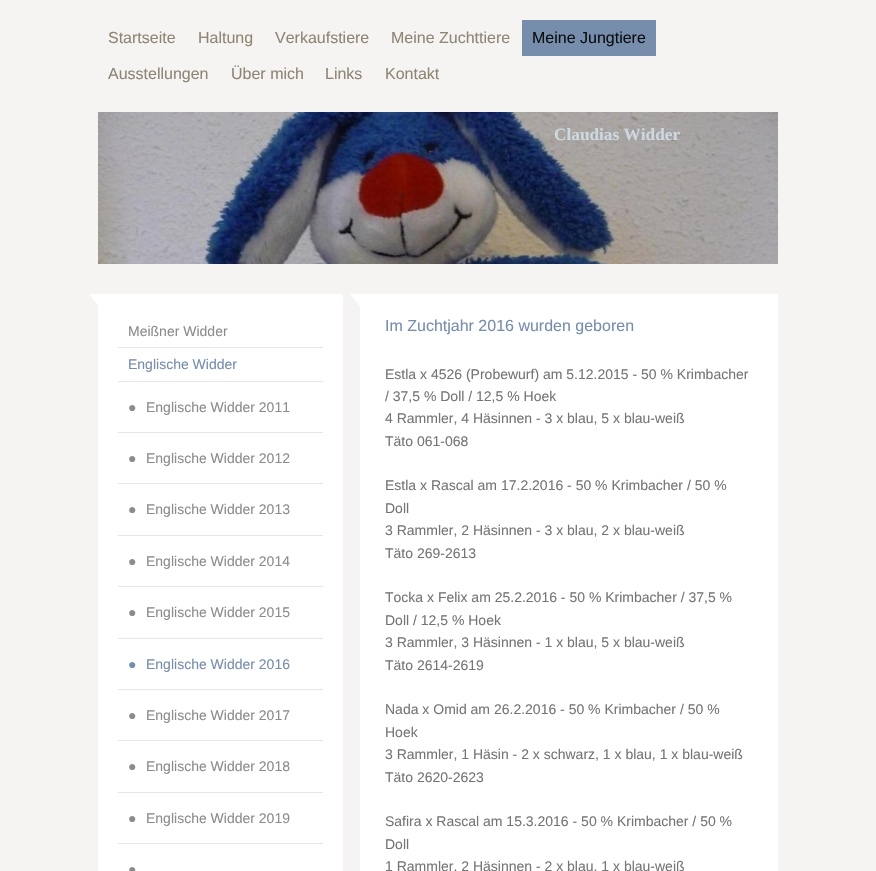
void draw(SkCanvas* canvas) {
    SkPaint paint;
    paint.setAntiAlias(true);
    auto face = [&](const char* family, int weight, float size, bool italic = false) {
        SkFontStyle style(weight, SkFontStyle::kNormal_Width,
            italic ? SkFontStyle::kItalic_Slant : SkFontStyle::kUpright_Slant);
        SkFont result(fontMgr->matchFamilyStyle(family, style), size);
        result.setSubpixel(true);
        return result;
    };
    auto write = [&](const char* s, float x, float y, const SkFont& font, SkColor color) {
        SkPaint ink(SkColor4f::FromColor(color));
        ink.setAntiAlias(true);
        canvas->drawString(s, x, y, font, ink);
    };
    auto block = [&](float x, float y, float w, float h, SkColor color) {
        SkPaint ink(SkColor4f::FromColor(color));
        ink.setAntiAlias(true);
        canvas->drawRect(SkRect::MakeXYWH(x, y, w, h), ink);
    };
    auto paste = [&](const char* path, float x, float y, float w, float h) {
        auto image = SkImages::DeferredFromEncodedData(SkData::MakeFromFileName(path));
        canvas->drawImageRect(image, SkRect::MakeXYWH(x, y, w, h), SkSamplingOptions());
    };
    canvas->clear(SkColorSetRGB(245, 244, 242));
    auto kFont1 = face("Liberation Sans", 400, 16);
    write("Startseite", 108, 43, kFont1, SkColorSetRGB(143, 133, 115));
    write("Haltung", 198, 43, kFont1, SkColorSetRGB(143, 133, 115));
    write("Verkaufstiere", 275, 43, kFont1, SkColorSetRGB(143, 133, 115));
    write("Meine Zuchttiere", 391, 43, kFont1, SkColorSetRGB(143, 133, 115));
    block(522, 20, 134, 36, SkColorSetRGB(118, 141, 172));
    write("Meine Jungtiere", 532, 43, kFont1, SkColorSetRGB(12, 14, 17));
    write("Ausstellungen", 108, 79, kFont1, SkColorSetRGB(143, 133, 115));
    write("Über mich", 231, 79, kFont1, SkColorSetRGB(143, 133, 115));
    write("Links", 325, 79, kFont1, SkColorSetRGB(143, 133, 115));
    write("Kontakt", 385, 79, kFont1, SkColorSetRGB(143, 133, 115));
    paste("pic1.png", 98, 112, 680, 152);
    auto kFont2 = face("Liberation Serif", 700, 17.25f);
    write("Claudias Widder", 554, 140, kFont2, SkColorSetRGB(206, 216, 224));
    block(98, 294, 245, 577, SK_ColorWHITE);
    paint.setColor(SK_ColorWHITE);
    canvas->drawPath(SkPathBuilder().moveTo(89, 294).lineTo(129, 294).lineTo(109, 319).close().detach(), paint);
    block(118, 347, 205, 1, SkColorSetRGB(230, 230, 230));
    auto kFont3 = face("Liberation Sans", 400, 14);
    write("Meißner Widder", 128, 336, kFont3, SkColorSetRGB(140, 140, 140));
    block(118, 381, 205, 1, SkColorSetRGB(230, 230, 230));
    write("Englische Widder", 128, 369, kFont3, SkColorSetRGB(118, 141, 172));
    block(118, 432, 205, 1, SkColorSetRGB(230, 230, 230));
    write("●", 128, 412, kFont3, SkColorSetRGB(140, 140, 140));
    write("Englische Widder 2011", 146, 412, kFont3, SkColorSetRGB(140, 140, 140));
    block(118, 483, 205, 1, SkColorSetRGB(230, 230, 230));
    write("●", 128, 463, kFont3, SkColorSetRGB(140, 140, 140));
    write("Englische Widder 2012", 146, 463, kFont3, SkColorSetRGB(140, 140, 140));
    block(118, 535, 205, 1, SkColorSetRGB(230, 230, 230));
    write("●", 128, 514, kFont3, SkColorSetRGB(140, 140, 140));
    write("Englische Widder 2013", 146, 514, kFont3, SkColorSetRGB(140, 140, 140));
    block(118, 586, 205, 1, SkColorSetRGB(230, 230, 230));
    write("●", 128, 566, kFont3, SkColorSetRGB(140, 140, 140));
    write("Englische Widder 2014", 146, 566, kFont3, SkColorSetRGB(140, 140, 140));
    block(118, 638, 205, 1, SkColorSetRGB(230, 230, 230));
    write("●", 128, 617, kFont3, SkColorSetRGB(140, 140, 140));
    write("Englische Widder 2015", 146, 617, kFont3, SkColorSetRGB(140, 140, 140));
    block(118, 689, 205, 1, SkColorSetRGB(230, 230, 230));
    write("●", 128, 669, kFont3, SkColorSetRGB(118, 141, 172));
    write("Englische Widder 2016", 146, 669, kFont3, SkColorSetRGB(118, 141, 172));
    block(118, 740, 205, 1, SkColorSetRGB(230, 230, 230));
    write("●", 128, 720, kFont3, SkColorSetRGB(140, 140, 140));
    write("Englische Widder 2017", 146, 720, kFont3, SkColorSetRGB(140, 140, 140));
    block(118, 792, 205, 1, SkColorSetRGB(230, 230, 230));
    write("●", 128, 771, kFont3, SkColorSetRGB(140, 140, 140));
    write("Englische Widder 2018", 146, 771, kFont3, SkColorSetRGB(140, 140, 140));
    block(118, 843, 205, 1, SkColorSetRGB(230, 230, 230));
    write("●", 128, 823, kFont3, SkColorSetRGB(140, 140, 140));
    write("Englische Widder 2019", 146, 823, kFont3, SkColorSetRGB(140, 140, 140));
    write("●", 128, 874, kFont3, SkColorSetRGB(140, 140, 140));
    block(360, 294, 418, 577, SK_ColorWHITE);
    canvas->drawPath(SkPathBuilder().moveTo(350, 294).lineTo(390, 294).lineTo(370, 319).close().detach(), paint);
    write("Im Zuchtjahr 2016 wurden geboren", 385, 331, kFont1, SkColorSetRGB(118, 141, 172));
    write("Estla x 4526 (Probewurf) am 5.12.2015 - 50 % Krimbacher", 385, 379, kFont3, SkColorSetRGB(117, 117, 117));
    write("/ 37,5 % Doll / 12,5 % Hoek", 385, 401, kFont3, SkColorSetRGB(117, 117, 117));
    write("4 Rammler, 4 Häsinnen - 3 x blau, 5 x blau-weiß", 385, 423, kFont3, SkColorSetRGB(117, 117, 117));
    write("Täto 061-068", 385, 446, kFont3, SkColorSetRGB(117, 117, 117));
    write("Estla x Rascal am 17.2.2016 - 50 % Krimbacher / 50 %", 385, 490, kFont3, SkColorSetRGB(117, 117, 117));
    write("Doll", 385, 513, kFont3, SkColorSetRGB(117, 117, 117));
    write("3 Rammler, 2 Häsinnen - 3 x blau, 2 x blau-weiß", 385, 535, kFont3, SkColorSetRGB(117, 117, 117));
    write("Täto 269-2613", 385, 558, kFont3, SkColorSetRGB(117, 117, 117));
    write("Tocka x Felix am 25.2.2016 - 50 % Krimbacher / 37,5 %", 385, 602, kFont3, SkColorSetRGB(117, 117, 117));
    write("Doll / 12,5 % Hoek", 385, 625, kFont3, SkColorSetRGB(117, 117, 117));
    write("3 Rammler, 3 Häsinnen - 1 x blau, 5 x blau-weiß", 385, 647, kFont3, SkColorSetRGB(117, 117, 117));
    write("Täto 2614-2619", 385, 670, kFont3, SkColorSetRGB(117, 117, 117));
    write("Nada x Omid am 26.2.2016 - 50 % Krimbacher / 50 %", 385, 714, kFont3, SkColorSetRGB(117, 117, 117));
    write("Hoek", 385, 737, kFont3, SkColorSetRGB(117, 117, 117));
    write("3 Rammler, 1 Häsin - 2 x schwarz, 1 x blau, 1 x blau-weiß", 385, 759, kFont3, SkColorSetRGB(117, 117, 117));
    write("Täto 2620-2623", 385, 782, kFont3, SkColorSetRGB(117, 117, 117));
    write("Safira x Rascal am 15.3.2016 - 50 % Krimbacher / 50 %", 385, 826, kFont3, SkColorSetRGB(117, 117, 117));
    write("Doll", 385, 849, kFont3, SkColorSetRGB(117, 117, 117));
    write("1 Rammler, 2 Häsinnen - 2 x blau, 1 x blau-weiß", 385, 871, kFont3, SkColorSetRGB(117, 117, 117));
}
